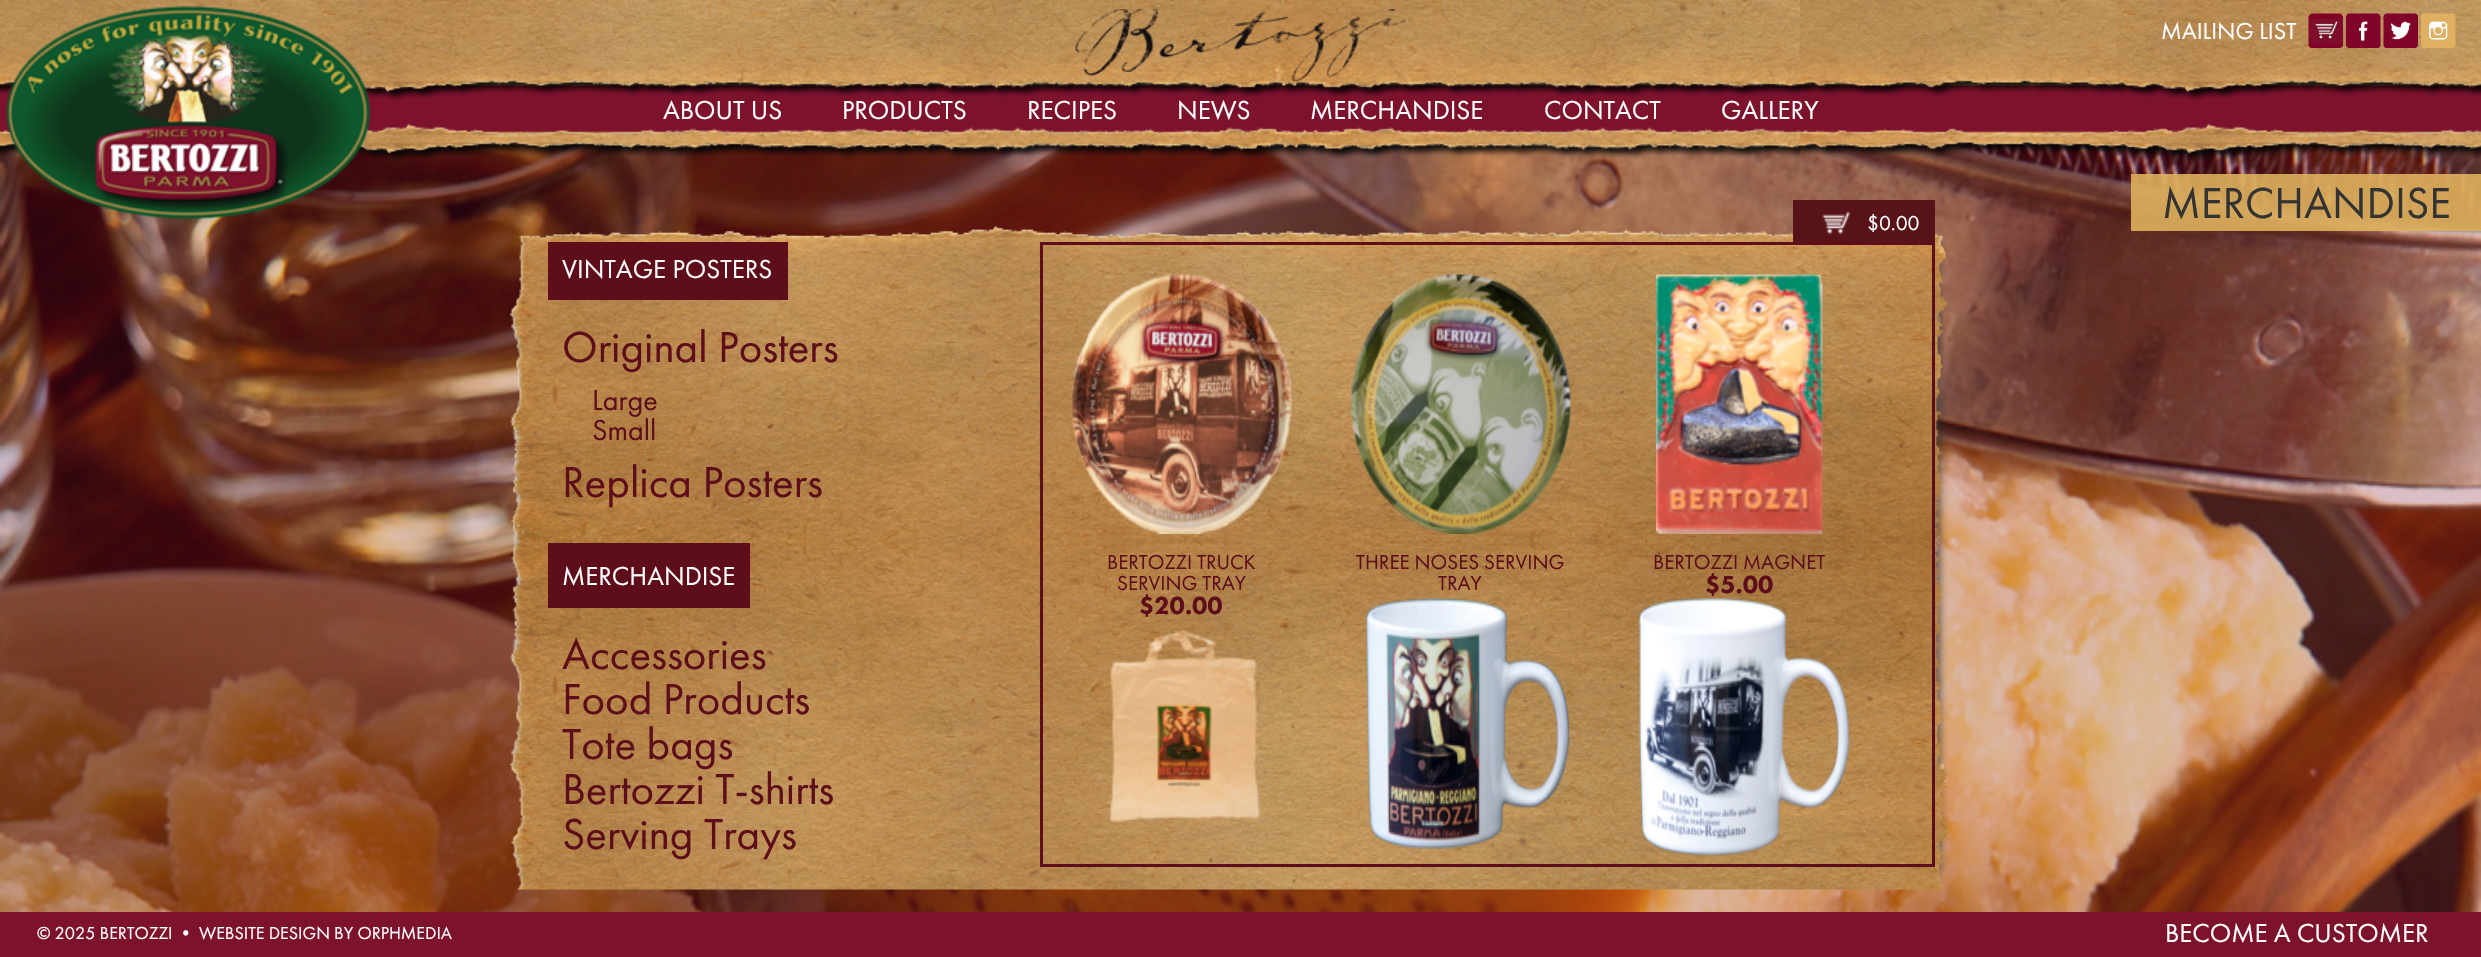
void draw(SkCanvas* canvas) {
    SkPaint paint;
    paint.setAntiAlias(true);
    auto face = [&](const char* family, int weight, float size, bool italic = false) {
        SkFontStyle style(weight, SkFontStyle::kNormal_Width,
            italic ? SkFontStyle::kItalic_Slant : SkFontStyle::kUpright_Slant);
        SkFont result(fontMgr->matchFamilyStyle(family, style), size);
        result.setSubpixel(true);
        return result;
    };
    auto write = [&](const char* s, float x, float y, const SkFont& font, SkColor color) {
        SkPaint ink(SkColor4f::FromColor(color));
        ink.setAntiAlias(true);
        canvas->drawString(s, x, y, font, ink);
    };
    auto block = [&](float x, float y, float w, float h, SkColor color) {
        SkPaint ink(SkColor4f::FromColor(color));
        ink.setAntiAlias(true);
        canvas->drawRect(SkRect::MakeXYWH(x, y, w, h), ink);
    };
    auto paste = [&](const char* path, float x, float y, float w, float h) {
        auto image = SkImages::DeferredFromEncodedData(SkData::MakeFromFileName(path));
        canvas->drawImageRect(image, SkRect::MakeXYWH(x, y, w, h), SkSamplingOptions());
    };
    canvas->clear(SkColorSetRGB(125, 18, 45));
    paste("pic8.png", 0, 142, 2481, 770);
    paste("pic5.png", 0, 0, 2481, 162);
    auto kFont1 = face("Futura PT", 400, 24);
    write("MAILING LIST", 2161, 39, kFont1, SK_ColorWHITE);
    paste("pic1.png", 2308, 13, 35, 35);
    paste("pic2.png", 2346, 13, 35, 35);
    paste("pic3.png", 2383, 13, 35, 35);
    paste("pic4.png", 2421, 13, 35, 35);
    paste("pic6.png", 6, 6, 365, 217);
    paste("pic7.png", 1075, 9, 331, 72);
    auto kFont2 = face("Futura PT", 400, 27);
    write("ABOUT US", 663, 119, kFont2, SK_ColorWHITE);
    write("PRODUCTS", 842, 119, kFont2, SK_ColorWHITE);
    write("RECIPES", 1027, 119, kFont2, SK_ColorWHITE);
    write("NEWS", 1177, 119, kFont2, SK_ColorWHITE);
    write("MERCHANDISE", 1310, 119, kFont2, SK_ColorWHITE);
    write("CONTACT", 1544, 119, kFont2, SK_ColorWHITE);
    write("GALLERY", 1721, 119, kFont2, SK_ColorWHITE);
    block(2131, 174, 350, 57, SkColorSetARGB(230, 221, 175, 92));
    auto kFont3 = face("Futura PT", 400, 45);
    write("MERCHANDISE", 2162, 218, kFont3, SkColorSetRGB(51, 51, 51));
    paint.setColor(SkColorSetARGB(191, 50, 50, 50));
    paint.setMaskFilter(SkMaskFilter::MakeBlur(kNormal_SkBlurStyle, 4));
    canvas->drawRect(SkRect::MakeXYWH(552, 246, 1388, 626), paint);
    paint.setMaskFilter(nullptr);
    paste("pic10.png", 510, 226, 1439, 664);
    block(1793, 200, 142, 42, SkColorSetRGB(87, 19, 24));
    paste("pic9.png", 1822, 211, 29, 24);
    auto kFont4 = face("Futura PT", 400, 21);
    write("$0.00", 1867, 230, kFont4, SK_ColorWHITE);
    block(548, 242, 240, 58, SkColorSetRGB(93, 14, 26));
    write("VINTAGE POSTERS", 562, 278, kFont2, SK_ColorWHITE);
    write("Original Posters", 562, 362, kFont3, SkColorSetRGB(93, 14, 26));
    auto kFont5 = face("Futura PT", 400, 30);
    write("Large", 592, 410, kFont5, SkColorSetRGB(93, 14, 26));
    write("Small", 592, 440, kFont5, SkColorSetRGB(93, 14, 26));
    write("Replica Posters", 562, 497, kFont3, SkColorSetRGB(93, 14, 26));
    block(548, 543, 202, 65, SkColorSetRGB(93, 14, 26));
    write("MERCHANDISE", 562, 585, kFont2, SK_ColorWHITE);
    write("Accessories", 562, 669, kFont3, SkColorSetRGB(93, 14, 26));
    write("Food Products", 562, 714, kFont3, SkColorSetRGB(93, 14, 26));
    write("Tote bags", 562, 759, kFont3, SkColorSetRGB(93, 14, 26));
    write("Bertozzi T-shirts", 562, 804, kFont3, SkColorSetRGB(93, 14, 26));
    write("Serving Trays", 562, 849, kFont3, SkColorSetRGB(93, 14, 26));
    paint.setStyle(SkPaint::kStroke_Style);
    paint.setStrokeWidth(3);
    paint.setColor(SkColorSetRGB(93, 14, 27));
    canvas->drawRect(SkRect::MakeXYWH(1041.5f, 243.5f, 892, 622), paint);
    paste("pic11.png", 1072, 274, 220, 260);
    write("BERTOZZI TRUCK", 1107, 569, kFont4, SkColorSetRGB(93, 14, 26));
    write("SERVING TRAY", 1117, 590, kFont4, SkColorSetRGB(93, 14, 26));
    auto kFont6 = face("Futura PT", 900, 25.5f);
    write("$20.00", 1139, 614, kFont6, SkColorSetRGB(93, 14, 26));
    paste("pic12.png", 1351, 274, 220, 260);
    write("THREE NOSES SERVING", 1356, 569, kFont4, SkColorSetRGB(93, 14, 26));
    write("TRAY", 1438, 590, kFont4, SkColorSetRGB(93, 14, 26));
    paste("pic13.png", 1656, 274, 167, 260);
    write("BERTOZZI MAGNET", 1653, 569, kFont4, SkColorSetRGB(93, 14, 26));
    write("$5.00", 1705, 593, kFont6, SkColorSetRGB(93, 14, 26));
    paste("pic14.png", 1095, 599, 166, 223);
    paste("pic15.png", 1365, 598, 205, 260);
    paste("pic16.png", 1638, 598, 212, 259);
    auto kFont7 = face("Futura PT", 400, 18);
    write("© 2025 BERTOZZI • WEBSITE DESIGN BY ORPHMEDIA", 37, 939, kFont7, SK_ColorWHITE);
    write("BECOME A CUSTOMER", 2165, 942, kFont2, SK_ColorWHITE);
}
